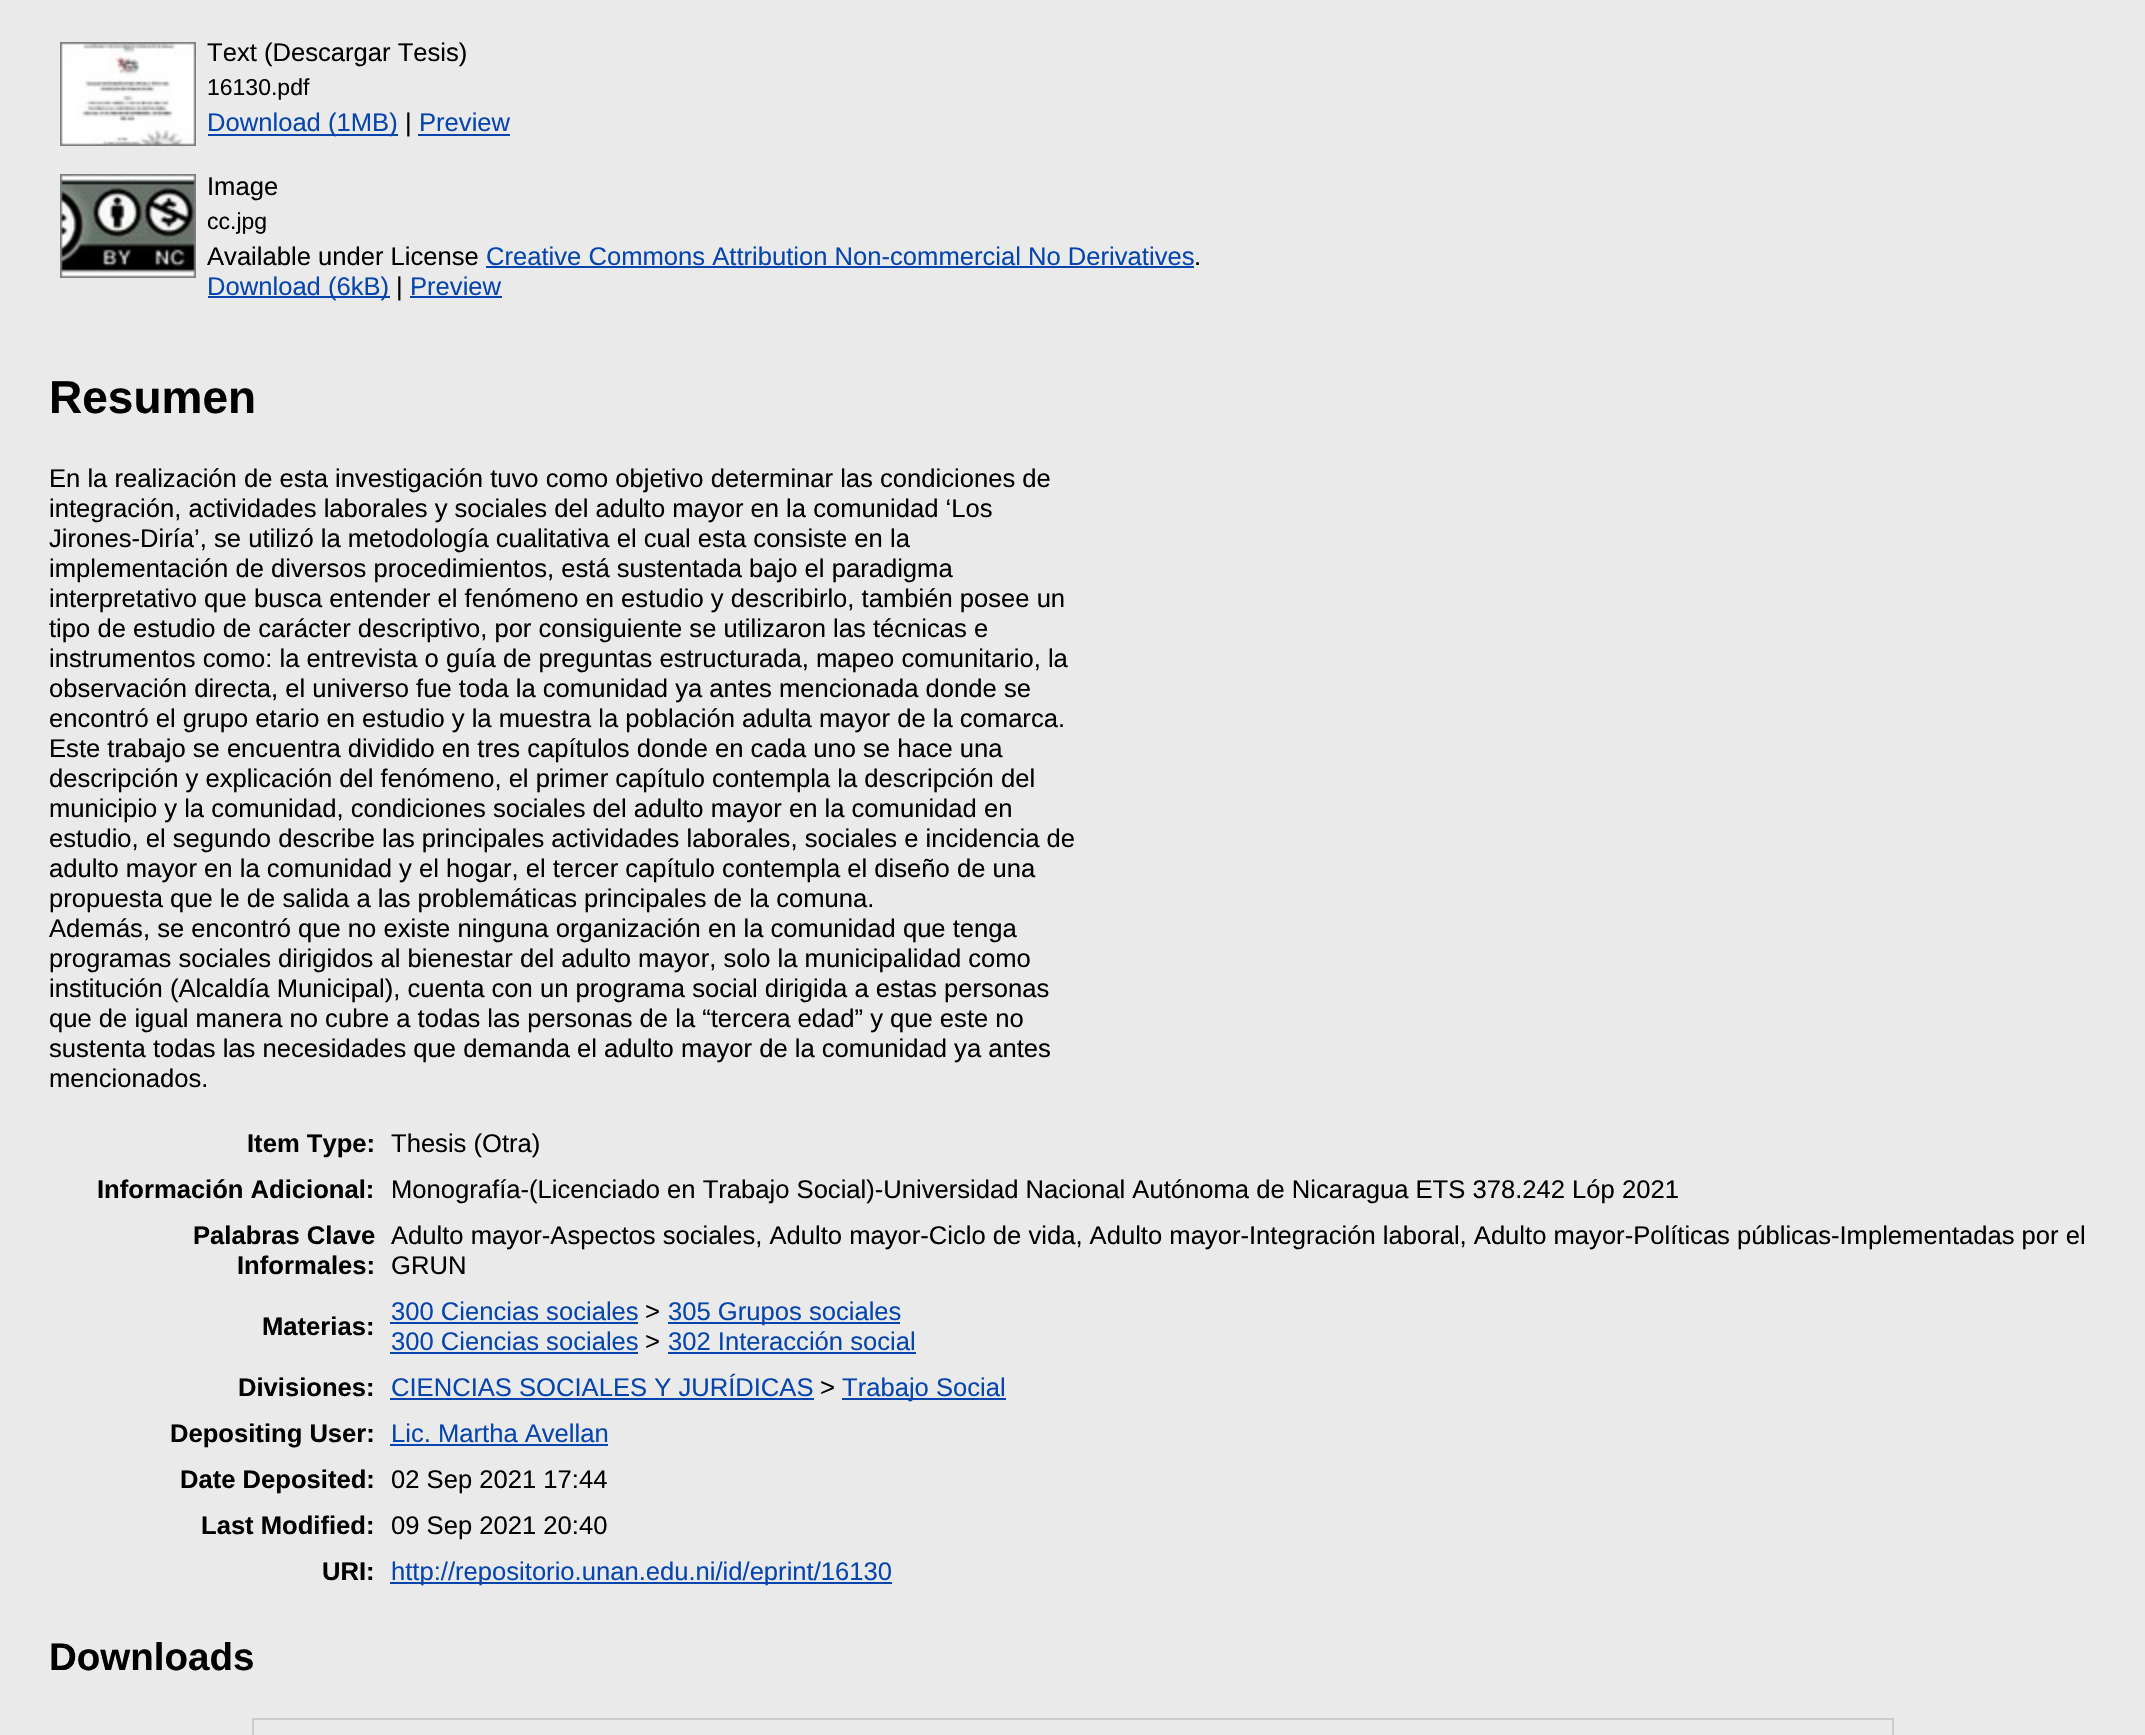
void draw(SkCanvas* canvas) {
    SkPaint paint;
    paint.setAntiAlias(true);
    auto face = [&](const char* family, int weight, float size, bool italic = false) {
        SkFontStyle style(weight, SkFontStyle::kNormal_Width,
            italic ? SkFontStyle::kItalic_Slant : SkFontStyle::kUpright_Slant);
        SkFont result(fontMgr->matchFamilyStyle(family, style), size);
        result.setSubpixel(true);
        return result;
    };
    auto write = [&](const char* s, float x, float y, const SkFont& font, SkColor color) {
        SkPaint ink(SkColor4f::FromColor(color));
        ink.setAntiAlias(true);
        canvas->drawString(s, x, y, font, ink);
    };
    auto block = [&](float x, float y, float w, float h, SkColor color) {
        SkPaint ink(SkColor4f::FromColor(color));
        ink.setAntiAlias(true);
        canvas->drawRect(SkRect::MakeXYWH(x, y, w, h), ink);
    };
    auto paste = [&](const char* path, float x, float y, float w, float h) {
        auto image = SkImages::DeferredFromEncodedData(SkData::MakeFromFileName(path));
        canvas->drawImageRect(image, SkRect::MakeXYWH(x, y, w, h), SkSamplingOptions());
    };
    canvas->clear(SkColorSetRGB(234, 234, 234));
    paste("pic1.png", 60, 42, 136, 104);
    auto kFont1 = face("Liberation Sans", 400, 25.6f);
    write("Text (Descargar Tesis)", 207, 61, kFont1, SK_ColorBLACK);
    auto kFont2 = face("Liberation Sans", 400, 23);
    write("16130.pdf", 207, 95, kFont2, SK_ColorBLACK);
    block(208, 134, 190, 2, SkColorSetRGB(6, 69, 173));
    write("Download (1MB)", 207, 131, kFont1, SkColorSetRGB(6, 69, 173));
    write("|", 405, 131, kFont1, SK_ColorBLACK);
    write("Preview", 419, 131, kFont1, SkColorSetRGB(6, 69, 173));
    block(418, 134, 92, 2, SkColorSetRGB(6, 69, 173));
    paste("pic2.png", 60, 174, 136, 104);
    write("Image", 207, 195, kFont1, SK_ColorBLACK);
    write("cc.jpg", 207, 229, kFont2, SK_ColorBLACK);
    write("Available under License", 207, 265, kFont1, SK_ColorBLACK);
    write("Creative Commons Attribution Non-commercial No Derivatives", 486, 265, kFont1, SkColorSetRGB(6, 69, 173));
    write(".", 1194, 265, kFont1, SK_ColorBLACK);
    block(486, 266, 708, 2, SkColorSetRGB(6, 69, 173));
    block(208, 296, 182, 2, SkColorSetRGB(6, 69, 173));
    write("Download (6kB)", 207, 295, kFont1, SkColorSetRGB(6, 69, 173));
    write("|", 396, 295, kFont1, SK_ColorBLACK);
    write("Preview", 410, 295, kFont1, SkColorSetRGB(6, 69, 173));
    block(410, 296, 92, 2, SkColorSetRGB(6, 69, 173));
    auto kFont3 = face("Liberation Sans", 700, 46);
    write("Resumen", 49, 413, kFont3, SK_ColorBLACK);
    write("En la realización de esta investigación tuvo como objetivo determinar las condiciones de", 49, 487, kFont1, SK_ColorBLACK);
    write("integración, actividades laborales y sociales del adulto mayor en la comunidad ‘Los", 49, 517, kFont1, SK_ColorBLACK);
    write("Jirones-Diría’, se utilizó la metodología cualitativa el cual esta consiste en la", 49, 547, kFont1, SK_ColorBLACK);
    write("implementación de diversos procedimientos, está sustentada bajo el paradigma", 49, 577, kFont1, SK_ColorBLACK);
    write("interpretativo que busca entender el fenómeno en estudio y describirlo, también posee un", 49, 607, kFont1, SK_ColorBLACK);
    write("tipo de estudio de carácter descriptivo, por consiguiente se utilizaron las técnicas e", 49, 637, kFont1, SK_ColorBLACK);
    write("instrumentos como: la entrevista o guía de preguntas estructurada, mapeo comunitario, la", 49, 667, kFont1, SK_ColorBLACK);
    write("observación directa, el universo fue toda la comunidad ya antes mencionada donde se", 49, 697, kFont1, SK_ColorBLACK);
    write("encontró el grupo etario en estudio y la muestra la población adulta mayor de la comarca.", 49, 727, kFont1, SK_ColorBLACK);
    write("Este trabajo se encuentra dividido en tres capítulos donde en cada uno se hace una", 49, 757, kFont1, SK_ColorBLACK);
    write("descripción y explicación del fenómeno, el primer capítulo contempla la descripción del", 49, 787, kFont1, SK_ColorBLACK);
    write("municipio y la comunidad, condiciones sociales del adulto mayor en la comunidad en", 49, 817, kFont1, SK_ColorBLACK);
    write("estudio, el segundo describe las principales actividades laborales, sociales e incidencia de", 49, 847, kFont1, SK_ColorBLACK);
    write("adulto mayor en la comunidad y el hogar, el tercer capítulo contempla el diseño de una", 49, 877, kFont1, SK_ColorBLACK);
    write("propuesta que le de salida a las problemáticas principales de la comuna.", 49, 907, kFont1, SK_ColorBLACK);
    write("Además, se encontró que no existe ninguna organización en la comunidad que tenga", 49, 937, kFont1, SK_ColorBLACK);
    write("programas sociales dirigidos al bienestar del adulto mayor, solo la municipalidad como", 49, 967, kFont1, SK_ColorBLACK);
    write("institución (Alcaldía Municipal), cuenta con un programa social dirigida a estas personas", 49, 997, kFont1, SK_ColorBLACK);
    write("que de igual manera no cubre a todas las personas de la “tercera edad” y que este no", 49, 1027, kFont1, SK_ColorBLACK);
    write("sustenta todas las necesidades que demanda el adulto mayor de la comunidad ya antes", 49, 1057, kFont1, SK_ColorBLACK);
    write("mencionados.", 49, 1087, kFont1, SK_ColorBLACK);
    auto kFont4 = face("Liberation Sans", 700, 25.6f);
    write("Item Type:", 247, 1152, kFont4, SK_ColorBLACK);
    write("Thesis (Otra)", 391, 1152, kFont1, SK_ColorBLACK);
    write("Información Adicional:", 97, 1198, kFont4, SK_ColorBLACK);
    write("Monografía-(Licenciado en Trabajo Social)-Universidad Nacional Autónoma de Nicaragua ETS 378.242 Lóp 2021", 391, 1198, kFont1, SK_ColorBLACK);
    write("Palabras Clave", 193, 1244, kFont4, SK_ColorBLACK);
    write("Informales:", 237, 1274, kFont4, SK_ColorBLACK);
    write("Adulto mayor-Aspectos sociales, Adulto mayor-Ciclo de vida, Adulto mayor-Integración laboral, Adulto mayor-Políticas públicas-Implementadas por el", 391, 1244, kFont1, SK_ColorBLACK);
    write("GRUN", 391, 1274, kFont1, SK_ColorBLACK);
    write("Materias:", 262, 1335, kFont4, SK_ColorBLACK);
    write("300 Ciencias sociales", 391, 1320, kFont1, SkColorSetRGB(6, 69, 173));
    block(390, 1322, 248, 2, SkColorSetRGB(6, 69, 173));
    write(">", 645, 1320, kFont1, SK_ColorBLACK);
    block(668, 1322, 232, 2, SkColorSetRGB(6, 69, 173));
    write("305 Grupos sociales", 668, 1320, kFont1, SkColorSetRGB(6, 69, 173));
    write("300 Ciencias sociales", 391, 1350, kFont1, SkColorSetRGB(6, 69, 173));
    block(390, 1352, 248, 2, SkColorSetRGB(6, 69, 173));
    write(">", 645, 1350, kFont1, SK_ColorBLACK);
    write("302 Interacción social", 668, 1350, kFont1, SkColorSetRGB(6, 69, 173));
    block(668, 1352, 248, 2, SkColorSetRGB(6, 69, 173));
    write("Divisiones:", 238, 1396, kFont4, SK_ColorBLACK);
    write("CIENCIAS SOCIALES Y JURÍDICAS", 391, 1396, kFont1, SkColorSetRGB(6, 69, 173));
    block(390, 1398, 424, 2, SkColorSetRGB(6, 69, 173));
    write(">", 820, 1396, kFont1, SK_ColorBLACK);
    block(842, 1398, 164, 2, SkColorSetRGB(6, 69, 173));
    write("Trabajo Social", 842, 1396, kFont1, SkColorSetRGB(6, 69, 173));
    write("Depositing User:", 170, 1442, kFont4, SK_ColorBLACK);
    write("Lic. Martha Avellan", 391, 1442, kFont1, SkColorSetRGB(6, 69, 173));
    block(390, 1444, 218, 2, SkColorSetRGB(6, 69, 173));
    write("Date Deposited:", 180, 1488, kFont4, SK_ColorBLACK);
    write("02 Sep 2021 17:44", 391, 1488, kFont1, SK_ColorBLACK);
    write("Last Modified:", 201, 1534, kFont4, SK_ColorBLACK);
    write("09 Sep 2021 20:40", 391, 1534, kFont1, SK_ColorBLACK);
    write("URI:", 322, 1580, kFont4, SK_ColorBLACK);
    block(390, 1582, 502, 2, SkColorSetRGB(6, 69, 173));
    write("http://repositorio.unan.edu.ni/id/eprint/16130", 391, 1580, kFont1, SkColorSetRGB(6, 69, 173));
    auto kFont5 = face("Liberation Sans", 700, 38.5f);
    write("Downloads", 49, 1670, kFont5, SK_ColorBLACK);
    paint.setStyle(SkPaint::kStroke_Style);
    paint.setStrokeWidth(2);
    paint.setColor(SkColorSetRGB(204, 204, 204));
    canvas->drawRect(SkRect::MakeXYWH(253, 1719, 1640, 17), paint);
}
